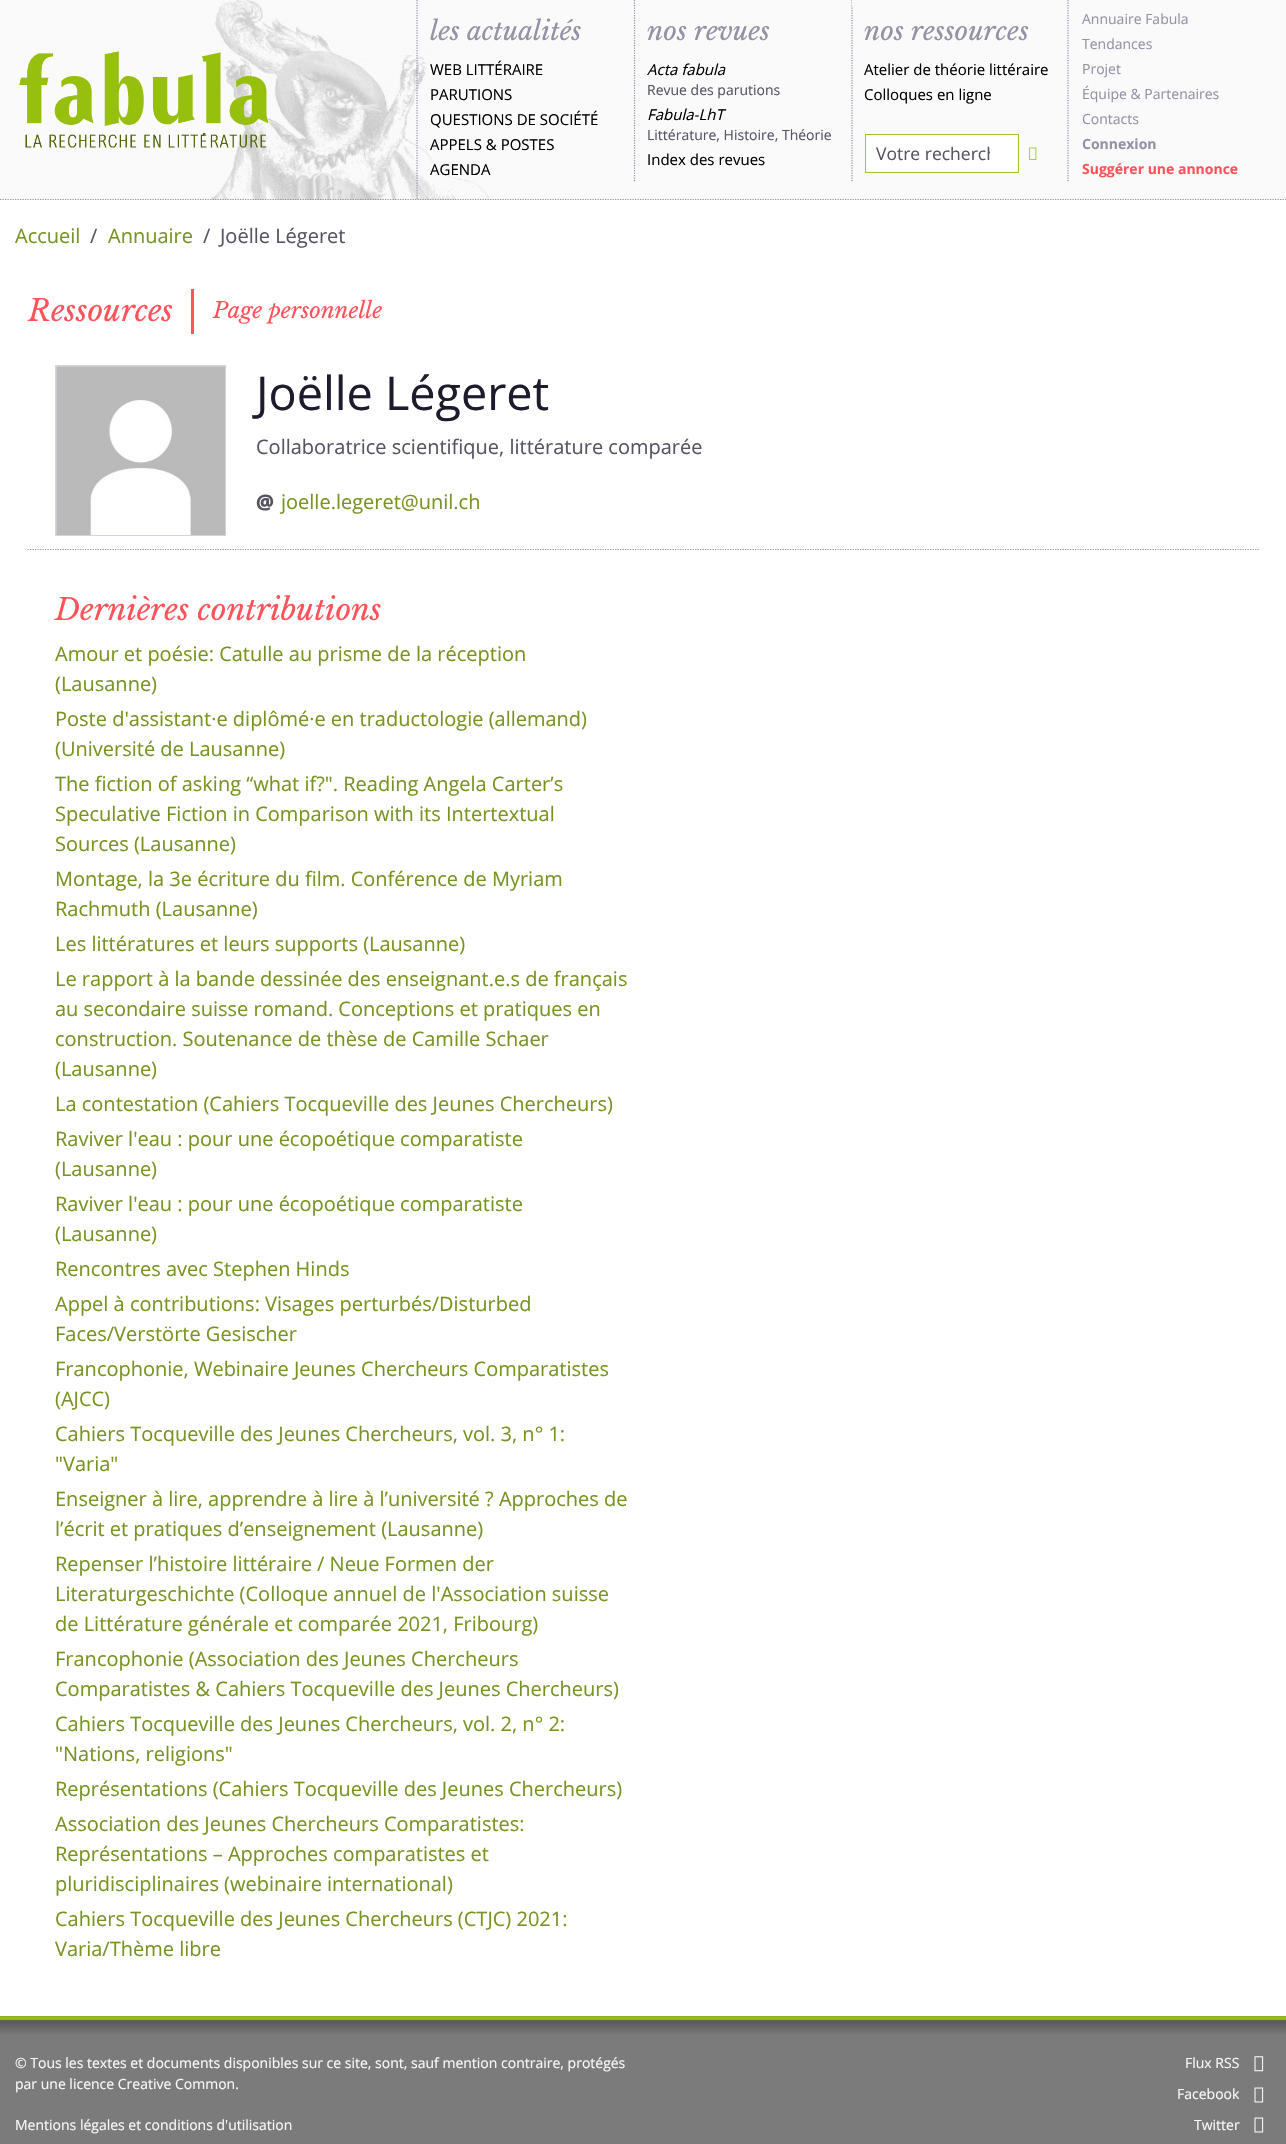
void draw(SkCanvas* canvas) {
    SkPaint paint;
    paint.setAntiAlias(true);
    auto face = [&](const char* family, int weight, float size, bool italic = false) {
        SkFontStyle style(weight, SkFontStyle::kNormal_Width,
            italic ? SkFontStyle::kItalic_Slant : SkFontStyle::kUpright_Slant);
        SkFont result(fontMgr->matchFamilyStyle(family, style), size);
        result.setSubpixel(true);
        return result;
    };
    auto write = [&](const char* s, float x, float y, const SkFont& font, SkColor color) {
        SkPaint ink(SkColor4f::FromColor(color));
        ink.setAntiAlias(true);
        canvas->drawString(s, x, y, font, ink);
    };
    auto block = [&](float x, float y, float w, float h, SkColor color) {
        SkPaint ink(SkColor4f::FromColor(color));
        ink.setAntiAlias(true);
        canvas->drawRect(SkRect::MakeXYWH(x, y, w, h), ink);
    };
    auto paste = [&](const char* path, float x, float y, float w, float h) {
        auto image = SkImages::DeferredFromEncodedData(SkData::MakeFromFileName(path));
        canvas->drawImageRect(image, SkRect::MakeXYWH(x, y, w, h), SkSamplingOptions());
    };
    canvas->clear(SK_ColorWHITE);
    block(0, 0, 1286, 200, SkColorSetRGB(250, 250, 250));
    paste("pic1.png", 211, 0, 279, 200);
    paint.setStyle(SkPaint::kStroke_Style);
    paint.setStrokeWidth(1.2f);
    paint.setColor(SkColorSetRGB(150, 145, 164));
    paint.setPathEffect(SkDashPathEffect::Make({{1.25f, 1.25f}}, 0));
    canvas->drawPath(SkPathBuilder().moveTo(0, 199.5f).lineTo(1286, 199.5f).detach(), paint);
    paint.setPathEffect(nullptr);
    paint.setPathEffect(SkDashPathEffect::Make({{1.25f, 1.25f}}, 0));
    canvas->drawPath(SkPathBuilder().moveTo(417, 0).lineTo(417, 199).detach(), paint);
    paint.setPathEffect(nullptr);
    paste("pic2.png", 19, 51, 249, 97);
    paint.setPathEffect(SkDashPathEffect::Make({{1.25f, 1.25f}}, 0));
    canvas->drawPath(SkPathBuilder().moveTo(634.5f, 0).lineTo(634.5f, 182.5f).detach(), paint);
    paint.setPathEffect(nullptr);
    auto kFont1 = face("Libre Baskerville", 400, 26, true);
    write("les actualités", 430, 40, kFont1, SkColorSetRGB(150, 145, 164));
    auto kFont2 = face("Open Sans", 400, 15);
    write("WEB LITTÉRAIRE", 430, 75, kFont2, SK_ColorBLACK);
    write("PARUTIONS", 430, 100, kFont2, SK_ColorBLACK);
    write("QUESTIONS DE SOCIÉTÉ", 430, 125, kFont2, SK_ColorBLACK);
    write("APPELS & POSTES", 430, 150, kFont2, SK_ColorBLACK);
    write("AGENDA", 430, 175, kFont2, SK_ColorBLACK);
    paint.setStyle(SkPaint::kFill_Style);
    paint.setColor(SkColorSetRGB(250, 250, 250));
    canvas->drawPath(SkPathBuilder().moveTo(635, 0).lineTo(852, 0).lineTo(851, 6).lineTo(635, 6).close().detach(), paint);
    paint.setStyle(SkPaint::kStroke_Style);
    paint.setColor(SkColorSetRGB(150, 145, 164));
    paint.setPathEffect(SkDashPathEffect::Make({{1.25f, 1.25f}}, 0));
    canvas->drawPath(SkPathBuilder().moveTo(852, 0).lineTo(852, 182.5f).detach(), paint);
    paint.setPathEffect(nullptr);
    write("nos revues", 647, 40, kFont1, SkColorSetRGB(150, 145, 164));
    auto kFont3 = face("Open Sans", 400, 15, true);
    write("Acta fabula", 647, 75, kFont3, SK_ColorBLACK);
    auto kFont4 = face("Open Sans", 400, 14);
    write("Revue des parutions", 647, 95, kFont4, SkColorSetRGB(87, 84, 98));
    write("Fabula-LhT", 647, 120, kFont3, SK_ColorBLACK);
    write("Littérature, Histoire, Théorie", 647, 140, kFont4, SkColorSetRGB(87, 84, 98));
    write("Index des revues", 647, 165, kFont2, SK_ColorBLACK);
    paint.setStyle(SkPaint::kFill_Style);
    paint.setColor(SkColorSetRGB(250, 250, 250));
    canvas->drawPath(SkPathBuilder().moveTo(852, 0).lineTo(1069, 0).lineTo(1068, 6).lineTo(852, 6).close().detach(), paint);
    paint.setStyle(SkPaint::kStroke_Style);
    paint.setColor(SkColorSetRGB(150, 145, 164));
    paint.setPathEffect(SkDashPathEffect::Make({{1.25f, 1.25f}}, 0));
    canvas->drawPath(SkPathBuilder().moveTo(1068, 0).lineTo(1068, 182.5f).detach(), paint);
    paint.setPathEffect(nullptr);
    write("nos ressources", 864, 40, kFont1, SkColorSetRGB(150, 145, 164));
    write("Atelier de théorie littéraire", 864, 75, kFont2, SK_ColorBLACK);
    write("Colloques en ligne", 864, 100, kFont2, SK_ColorBLACK);
    block(866, 135, 152, 36, SK_ColorWHITE);
    paint.setStrokeWidth(1);
    paint.setColor(SkColorSetRGB(159, 197, 44));
    canvas->drawRect(SkRect::MakeXYWH(865.5f, 134.5f, 153, 38), paint);
    canvas->save();
    canvas->clipRect(SkRect::MakeXYWH(876, 141, 114, 24));
    auto kFont5 = face("Open Sans", 400, 17.5f);
    write("Votre recherch", 876, 160, kFont5, SkColorSetRGB(87, 84, 98));
    canvas->restore();
    paste("pic3.png", 1029, 147, 8, 13);
    write("Annuaire Fabula", 1082, 24, kFont4, SkColorSetRGB(150, 145, 164));
    write("Tendances", 1082, 49, kFont4, SkColorSetRGB(150, 145, 164));
    write("Projet", 1082, 74, kFont4, SkColorSetRGB(150, 145, 164));
    write("Équipe & Partenaires", 1082, 99, kFont4, SkColorSetRGB(150, 145, 164));
    write("Contacts", 1082, 124, kFont4, SkColorSetRGB(150, 145, 164));
    auto kFont6 = face("Open Sans", 700, 14);
    write("Connexion", 1082, 149, kFont6, SkColorSetRGB(150, 145, 164));
    write("Suggérer une annonce", 1082, 174, kFont6, SkColorSetRGB(255, 83, 92));
    auto kFont7 = face("Open Sans", 400, 20);
    write("Accueil", 15, 243, kFont7, SkColorSetRGB(119, 147, 33));
    write("/", 90, 243, kFont7, SkColorSetRGB(87, 84, 98));
    write("Annuaire", 108, 243, kFont7, SkColorSetRGB(119, 147, 33));
    write("/", 203, 243, kFont7, SkColorSetRGB(87, 84, 98));
    write("Joëlle Légeret", 220, 243, kFont7, SkColorSetRGB(87, 84, 98));
    block(191, 289, 3, 45, SkColorSetRGB(255, 83, 92));
    auto kFont8 = face("Libre Baskerville", 400, 30, true);
    write("Ressources", 28, 321, kFont8, SkColorSetRGB(255, 83, 92));
    auto kFont9 = face("Libre Baskerville", 400, 22, true);
    write("Page personnelle", 213, 318, kFont9, SkColorSetRGB(255, 83, 92));
    paint.setStrokeWidth(1.2f);
    paint.setColor(SkColorSetRGB(150, 145, 164));
    paint.setPathEffect(SkDashPathEffect::Make({{1.25f, 1.25f}}, 0));
    canvas->drawPath(SkPathBuilder().moveTo(27.5f, 549.5f).lineTo(1259, 549.5f).detach(), paint);
    paint.setPathEffect(nullptr);
    paint.setStrokeWidth(1);
    paint.setColor(SkColorSetRGB(213, 210, 220));
    canvas->drawRect(SkRect::MakeXYWH(55.5f, 365.5f, 170, 170), paint);
    paste("pic4.png", 56, 366, 169, 169);
    auto kFont10 = face("Open Sans", 400, 46.75f);
    write("Joëlle Légeret", 256, 410, kFont10, SkColorSetRGB(31, 27, 45));
    write("Collaboratrice scientifique, littérature comparée", 256, 454, kFont7, SkColorSetRGB(87, 84, 98));
    auto kFont11 = face("Noto Sans", 900, 20);
    write("@", 256, 509, kFont11, SkColorSetRGB(87, 84, 98));
    write("joelle.legeret@unil.ch", 281, 509, kFont7, SkColorSetRGB(119, 147, 33));
    write("Dernières contributions", 55, 620, kFont8, SkColorSetRGB(255, 83, 92));
    write("Amour et poésie: Catulle au prisme de la réception", 55, 661, kFont7, SkColorSetRGB(119, 147, 33));
    write("(Lausanne)", 55, 691, kFont7, SkColorSetRGB(119, 147, 33));
    write("Poste d'assistant·e diplômé·e en traductologie (allemand)", 55, 726, kFont7, SkColorSetRGB(119, 147, 33));
    write("(Université de Lausanne)", 55, 756, kFont7, SkColorSetRGB(119, 147, 33));
    write("The fiction of asking “what if?\". Reading Angela Carter’s", 55, 791, kFont7, SkColorSetRGB(119, 147, 33));
    write("Speculative Fiction in Comparison with its Intertextual", 55, 821, kFont7, SkColorSetRGB(119, 147, 33));
    write("Sources (Lausanne)", 55, 851, kFont7, SkColorSetRGB(119, 147, 33));
    write("Montage, la 3e écriture du film. Conférence de Myriam", 55, 886, kFont7, SkColorSetRGB(119, 147, 33));
    write("Rachmuth (Lausanne)", 55, 916, kFont7, SkColorSetRGB(119, 147, 33));
    write("Les littératures et leurs supports (Lausanne)", 55, 951, kFont7, SkColorSetRGB(119, 147, 33));
    write("Le rapport à la bande dessinée des enseignant.e.s de français", 55, 986, kFont7, SkColorSetRGB(119, 147, 33));
    write("au secondaire suisse romand. Conceptions et pratiques en", 55, 1016, kFont7, SkColorSetRGB(119, 147, 33));
    write("construction. Soutenance de thèse de Camille Schaer", 55, 1046, kFont7, SkColorSetRGB(119, 147, 33));
    write("(Lausanne)", 55, 1076, kFont7, SkColorSetRGB(119, 147, 33));
    write("La contestation (Cahiers Tocqueville des Jeunes Chercheurs)", 55, 1111, kFont7, SkColorSetRGB(119, 147, 33));
    write("Raviver l'eau : pour une écopoétique comparatiste", 55, 1146, kFont7, SkColorSetRGB(119, 147, 33));
    write("(Lausanne)", 55, 1176, kFont7, SkColorSetRGB(119, 147, 33));
    write("Raviver l'eau : pour une écopoétique comparatiste", 55, 1211, kFont7, SkColorSetRGB(119, 147, 33));
    write("(Lausanne)", 55, 1241, kFont7, SkColorSetRGB(119, 147, 33));
    write("Rencontres avec Stephen Hinds", 55, 1276, kFont7, SkColorSetRGB(119, 147, 33));
    write("Appel à contributions: Visages perturbés/Disturbed", 55, 1311, kFont7, SkColorSetRGB(119, 147, 33));
    write("Faces/Verstörte Gesischer", 55, 1341, kFont7, SkColorSetRGB(119, 147, 33));
    write("Francophonie, Webinaire Jeunes Chercheurs Comparatistes", 55, 1376, kFont7, SkColorSetRGB(119, 147, 33));
    write("(AJCC)", 55, 1406, kFont7, SkColorSetRGB(119, 147, 33));
    write("Cahiers Tocqueville des Jeunes Chercheurs, vol. 3, n° 1:", 55, 1441, kFont7, SkColorSetRGB(119, 147, 33));
    write("\"Varia\"", 55, 1471, kFont7, SkColorSetRGB(119, 147, 33));
    write("Enseigner à lire, apprendre à lire à l’université ? Approches de", 55, 1506, kFont7, SkColorSetRGB(119, 147, 33));
    write("l’écrit et pratiques d’enseignement (Lausanne)", 55, 1536, kFont7, SkColorSetRGB(119, 147, 33));
    write("Repenser l’histoire littéraire / Neue Formen der", 55, 1571, kFont7, SkColorSetRGB(119, 147, 33));
    write("Literaturgeschichte (Colloque annuel de l'Association suisse", 55, 1601, kFont7, SkColorSetRGB(119, 147, 33));
    write("de Littérature générale et comparée 2021, Fribourg)", 55, 1631, kFont7, SkColorSetRGB(119, 147, 33));
    write("Francophonie (Association des Jeunes Chercheurs", 55, 1666, kFont7, SkColorSetRGB(119, 147, 33));
    write("Comparatistes & Cahiers Tocqueville des Jeunes Chercheurs)", 55, 1696, kFont7, SkColorSetRGB(119, 147, 33));
    write("Cahiers Tocqueville des Jeunes Chercheurs, vol. 2, n° 2:", 55, 1731, kFont7, SkColorSetRGB(119, 147, 33));
    write("\"Nations, religions\"", 55, 1761, kFont7, SkColorSetRGB(119, 147, 33));
    write("Représentations (Cahiers Tocqueville des Jeunes Chercheurs)", 55, 1796, kFont7, SkColorSetRGB(119, 147, 33));
    write("Association des Jeunes Chercheurs Comparatistes:", 55, 1831, kFont7, SkColorSetRGB(119, 147, 33));
    write("Représentations – Approches comparatistes et", 55, 1861, kFont7, SkColorSetRGB(119, 147, 33));
    write("pluridisciplinaires (webinaire international)", 55, 1891, kFont7, SkColorSetRGB(119, 147, 33));
    write("Cahiers Tocqueville des Jeunes Chercheurs (CTJC) 2021:", 55, 1926, kFont7, SkColorSetRGB(119, 147, 33));
    write("Varia/Thème libre", 55, 1956, kFont7, SkColorSetRGB(119, 147, 33));
    block(0, 2016, 1286, 128, SkColorSetRGB(123, 123, 123));
    paste("pic5.png", 0, 2016, 1286, 18);
    write("© Tous les textes et documents disponibles sur ce site, sont, sauf mention contraire, protégés", 15, 2068, kFont4, SkColorSetRGB(249, 248, 250));
    write("par une licence Creative Common.", 15, 2089, kFont4, SkColorSetRGB(249, 248, 250));
    write("Mentions légales et conditions d'utilisation", 15, 2130, kFont4, SkColorSetRGB(249, 248, 250));
    write("Flux RSS", 1185, 2068, kFont4, SkColorSetRGB(249, 248, 250));
    paste("pic6.png", 1254, 2056, 10, 16);
    write("Facebook", 1177, 2099, kFont4, SkColorSetRGB(249, 248, 250));
    paste("pic7.png", 1254, 2087, 10, 16);
    write("Twitter", 1194, 2130, kFont4, SkColorSetRGB(249, 248, 250));
    paste("pic7.png", 1254, 2117, 10, 16);
}
